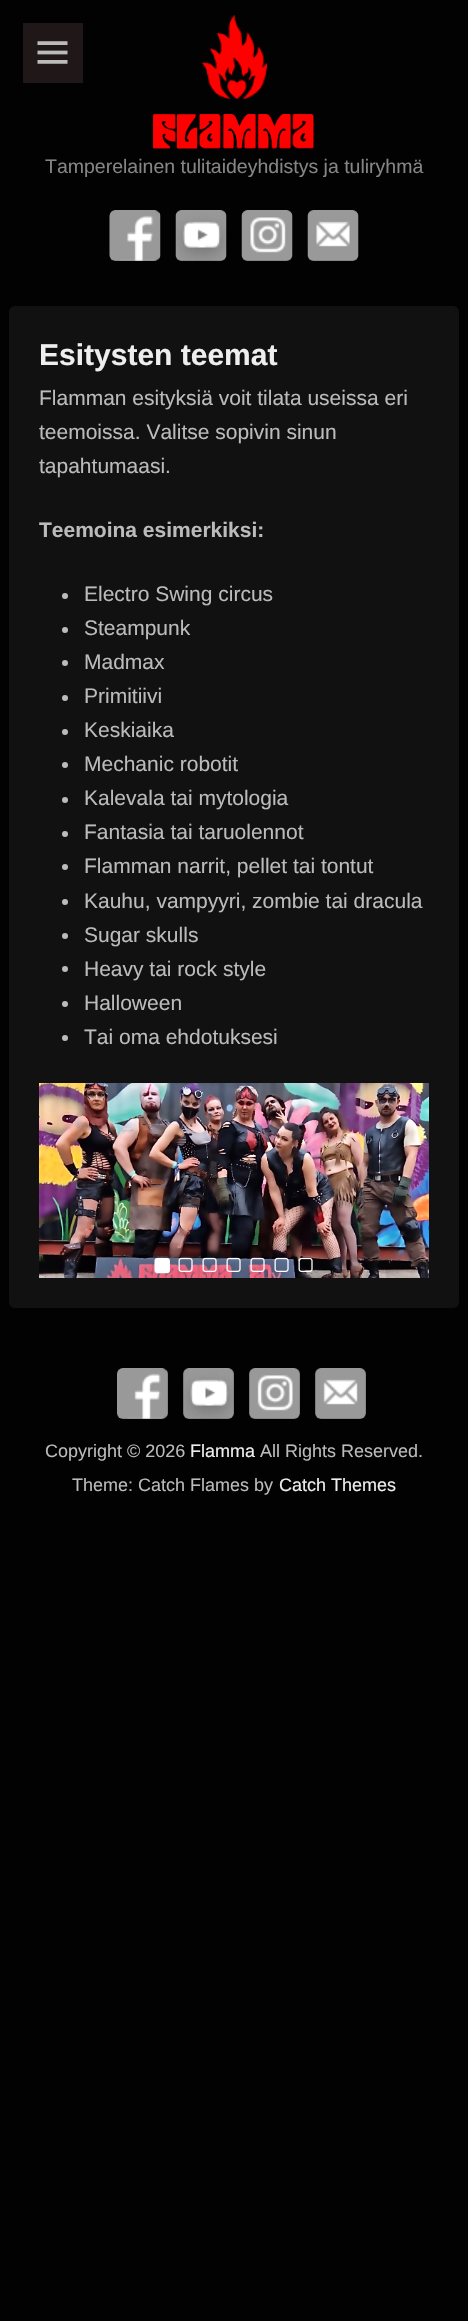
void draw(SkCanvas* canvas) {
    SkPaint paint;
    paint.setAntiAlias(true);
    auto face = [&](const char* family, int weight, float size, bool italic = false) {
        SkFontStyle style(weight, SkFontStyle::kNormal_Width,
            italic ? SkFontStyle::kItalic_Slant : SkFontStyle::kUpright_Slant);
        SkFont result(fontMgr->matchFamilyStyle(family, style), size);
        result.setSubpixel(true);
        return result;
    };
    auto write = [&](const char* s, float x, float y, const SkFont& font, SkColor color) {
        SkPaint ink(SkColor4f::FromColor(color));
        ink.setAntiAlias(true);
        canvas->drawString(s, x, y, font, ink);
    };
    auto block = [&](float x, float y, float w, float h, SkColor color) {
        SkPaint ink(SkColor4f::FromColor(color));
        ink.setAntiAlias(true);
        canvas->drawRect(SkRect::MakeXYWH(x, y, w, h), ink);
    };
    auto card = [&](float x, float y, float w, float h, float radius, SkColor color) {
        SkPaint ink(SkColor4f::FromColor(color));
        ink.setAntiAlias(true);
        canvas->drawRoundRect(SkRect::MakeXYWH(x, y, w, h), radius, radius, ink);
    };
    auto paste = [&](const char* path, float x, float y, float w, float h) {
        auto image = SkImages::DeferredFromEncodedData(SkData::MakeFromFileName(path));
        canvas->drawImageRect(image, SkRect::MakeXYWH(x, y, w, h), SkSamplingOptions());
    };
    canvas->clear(SkColorSetRGB(2, 2, 2));
    block(23, 23, 60, 60, SkColorSetRGB(32, 24, 24));
    paste("pic1.png", 37, 41, 31, 23);
    paste("pic2.png", 202, 15, 65, 84);
    paste("pic3.png", 153, 114, 161, 35);
    auto kFont1 = face("Liberation Sans", 400, 19.5f);
    write("Tamperelainen tulitaideyhdistys ja tuliryhmä", 45, 173, kFont1, SkColorSetRGB(133, 133, 133));
    paste("pic4.png", 109, 210, 52, 51);
    paste("pic5.png", 175, 210, 52, 51);
    paste("pic6.png", 241, 210, 52, 51);
    paste("pic7.png", 307, 210, 52, 51);
    card(9, 306, 450, 1002, 6, SkColorSetRGB(17, 17, 17));
    auto kFont2 = face("Liberation Sans", 700, 30);
    write("Esitysten teemat", 39, 365, kFont2, SkColorSetRGB(238, 238, 238));
    auto kFont3 = face("Liberation Sans", 400, 21);
    write("Flamman esityksiä voit tilata useissa eri", 39, 405, kFont3, SkColorSetRGB(187, 187, 187));
    write("teemoissa. Valitse sopivin sinun", 39, 439, kFont3, SkColorSetRGB(187, 187, 187));
    write("tapahtumaasi.", 39, 473, kFont3, SkColorSetRGB(187, 187, 187));
    auto kFont4 = face("Liberation Sans", 700, 21);
    write("Teemoina esimerkiksi:", 39, 537, kFont4, SkColorSetRGB(187, 187, 187));
    paint.setColor(SkColorSetRGB(187, 187, 187));
    canvas->drawCircle(65, 596, 3, paint);
    write("Electro Swing circus", 84, 601, kFont3, SkColorSetRGB(187, 187, 187));
    canvas->drawCircle(65, 630, 3, paint);
    write("Steampunk", 84, 635, kFont3, SkColorSetRGB(187, 187, 187));
    canvas->drawCircle(65, 663, 3, paint);
    write("Madmax", 84, 669, kFont3, SkColorSetRGB(187, 187, 187));
    canvas->drawCircle(65, 698, 3, paint);
    write("Primitiivi", 84, 703, kFont3, SkColorSetRGB(187, 187, 187));
    canvas->drawCircle(65, 732, 3, paint);
    write("Keskiaika", 84, 737, kFont3, SkColorSetRGB(187, 187, 187));
    canvas->drawCircle(65, 765, 3, paint);
    write("Mechanic robotit", 84, 771, kFont3, SkColorSetRGB(187, 187, 187));
    canvas->drawCircle(65, 800, 3, paint);
    write("Kalevala tai mytologia", 84, 805, kFont3, SkColorSetRGB(187, 187, 187));
    canvas->drawCircle(65, 834, 3, paint);
    write("Fantasia tai taruolennot", 84, 839, kFont3, SkColorSetRGB(187, 187, 187));
    canvas->drawCircle(65, 867, 3, paint);
    write("Flamman narrit, pellet tai tontut", 84, 873, kFont3, SkColorSetRGB(187, 187, 187));
    canvas->drawCircle(65, 902, 3, paint);
    write("Kauhu, vampyyri, zombie tai dracula", 84, 908, kFont3, SkColorSetRGB(187, 187, 187));
    canvas->drawCircle(65, 936, 3, paint);
    write("Sugar skulls", 84, 942, kFont3, SkColorSetRGB(187, 187, 187));
    canvas->drawCircle(65, 969, 3, paint);
    write("Heavy tai rock style", 84, 976, kFont3, SkColorSetRGB(187, 187, 187));
    canvas->drawCircle(65, 1004, 3, paint);
    write("Halloween", 84, 1010, kFont3, SkColorSetRGB(187, 187, 187));
    canvas->drawCircle(65, 1038, 3, paint);
    write("Tai oma ehdotuksesi", 84, 1044, kFont3, SkColorSetRGB(187, 187, 187));
    paste("pic8.png", 39, 1083, 390, 195);
    paste("pic9.png", 154, 1257, 16, 17);
    paste("pic10.png", 178, 1257, 15, 15);
    paste("pic11.png", 202, 1257, 15, 15);
    paste("pic12.png", 226, 1257, 15, 15);
    paste("pic13.png", 250, 1257, 15, 15);
    paste("pic14.png", 274, 1257, 15, 15);
    paste("pic15.png", 298, 1257, 15, 15);
    paste("pic16.png", 117, 1368, 51, 51);
    paste("pic17.png", 183, 1368, 51, 51);
    paste("pic18.png", 249, 1368, 51, 51);
    paste("pic19.png", 315, 1368, 51, 51);
    auto kFont5 = face("Liberation Sans", 400, 18);
    write("Copyright © 2026", 45, 1457, kFont5, SkColorSetRGB(187, 187, 187));
    write("Flamma", 190, 1457, kFont5, SkColorSetRGB(238, 238, 238));
    write("All Rights Reserved.", 260, 1457, kFont5, SkColorSetRGB(187, 187, 187));
    write("Theme: Catch Flames by", 72, 1491, kFont5, SkColorSetRGB(187, 187, 187));
    write("Catch Themes", 279, 1491, kFont5, SkColorSetRGB(238, 238, 238));
}
